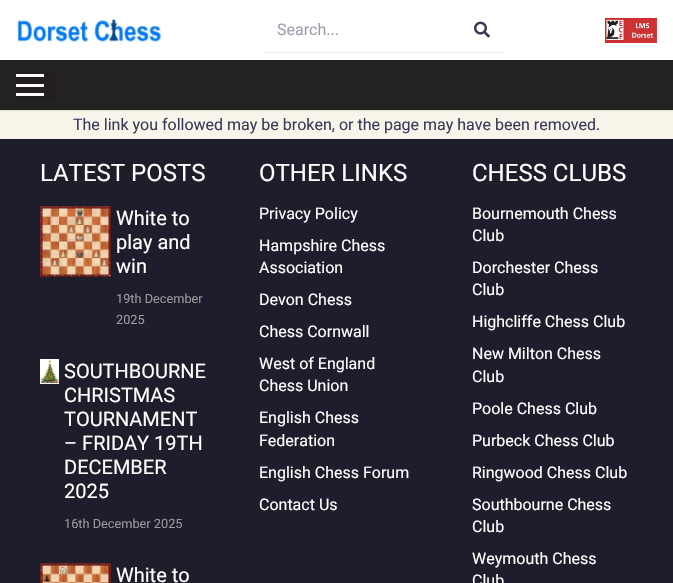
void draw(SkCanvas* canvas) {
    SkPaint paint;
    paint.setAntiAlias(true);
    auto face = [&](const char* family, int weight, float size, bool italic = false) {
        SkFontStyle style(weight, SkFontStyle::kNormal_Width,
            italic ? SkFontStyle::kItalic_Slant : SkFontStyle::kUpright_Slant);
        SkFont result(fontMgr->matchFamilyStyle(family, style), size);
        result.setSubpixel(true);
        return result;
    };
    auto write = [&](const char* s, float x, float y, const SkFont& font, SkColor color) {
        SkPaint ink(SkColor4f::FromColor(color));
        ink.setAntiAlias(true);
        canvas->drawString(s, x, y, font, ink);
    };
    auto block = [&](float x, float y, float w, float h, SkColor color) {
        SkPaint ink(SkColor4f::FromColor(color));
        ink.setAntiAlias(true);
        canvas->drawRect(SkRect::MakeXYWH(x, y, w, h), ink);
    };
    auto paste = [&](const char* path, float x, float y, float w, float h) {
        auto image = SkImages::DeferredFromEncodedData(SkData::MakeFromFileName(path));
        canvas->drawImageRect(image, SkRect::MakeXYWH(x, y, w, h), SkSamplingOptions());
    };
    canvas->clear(SkColorSetRGB(247, 244, 233));
    block(0, 0, 673, 60, SK_ColorWHITE);
    paste("pic1.png", 17, 18, 145, 25);
    block(264, 52, 240, 1, SkColorSetRGB(235, 235, 235));
    auto kFont1 = face("Roboto", 400, 16);
    write("Search...", 277, 35, kFont1, SkColorSetRGB(157, 157, 173));
    paste("pic2.png", 474, 21, 16, 17);
    paste("pic3.png", 605, 17, 52, 26);
    block(0, 110, 673, 1, SkColorSetRGB(227, 224, 214));
    block(0, 60, 673, 50, SkColorSetRGB(34, 34, 34));
    block(16, 71, 41, 28, SkColorSetRGB(35, 31, 32));
    block(16, 84, 28, 3, SK_ColorWHITE);
    block(16, 74, 28, 3, SK_ColorWHITE);
    block(16, 93, 28, 3, SK_ColorWHITE);
    write("The link you followed may be broken, or the page may have been removed.", 73, 130, kFont1, SkColorSetRGB(58, 58, 90));
    block(0, 139, 673, 444, SkColorSetRGB(29, 29, 44));
    auto kFont2 = face("Roboto", 400, 24);
    write("LATEST POSTS", 40, 181, kFont2, SK_ColorWHITE);
    paste("pic4.png", 40, 206, 71, 71);
    auto kFont3 = face("Roboto", 400, 20);
    write("White to", 116, 225, kFont3, SK_ColorWHITE);
    write("play and", 116, 249, kFont3, SK_ColorWHITE);
    write("win", 116, 273, kFont3, SK_ColorWHITE);
    auto kFont4 = face("Roboto", 400, 12.75f);
    write("19th December", 116, 303, kFont4, SkColorSetRGB(153, 153, 153));
    write("2025", 116, 324, kFont4, SkColorSetRGB(153, 153, 153));
    paste("pic5.png", 40, 359, 19, 25);
    write("SOUTHBOURNE", 64, 378, kFont3, SK_ColorWHITE);
    write("CHRISTMAS", 64, 402, kFont3, SK_ColorWHITE);
    write("TOURNAMENT", 64, 426, kFont3, SK_ColorWHITE);
    write("– FRIDAY 19TH", 64, 450, kFont3, SK_ColorWHITE);
    write("DECEMBER", 64, 474, kFont3, SK_ColorWHITE);
    write("2025", 64, 498, kFont3, SK_ColorWHITE);
    write("16th December 2025", 64, 528, kFont4, SkColorSetRGB(153, 153, 153));
    paste("pic6.png", 40, 563, 71, 20);
    write("White to", 116, 582, kFont3, SK_ColorWHITE);
    write("OTHER LINKS", 259, 181, kFont2, SK_ColorWHITE);
    write("Privacy Policy", 259, 219, kFont1, SK_ColorWHITE);
    write("Hampshire Chess", 259, 251, kFont1, SK_ColorWHITE);
    write("Association", 259, 273, kFont1, SK_ColorWHITE);
    write("Devon Chess", 259, 305, kFont1, SK_ColorWHITE);
    write("Chess Cornwall", 259, 337, kFont1, SK_ColorWHITE);
    write("West of England", 259, 369, kFont1, SK_ColorWHITE);
    write("Chess Union", 259, 391, kFont1, SK_ColorWHITE);
    write("English Chess", 259, 423, kFont1, SK_ColorWHITE);
    write("Federation", 259, 446, kFont1, SK_ColorWHITE);
    write("English Chess Forum", 259, 478, kFont1, SK_ColorWHITE);
    write("Contact Us", 259, 510, kFont1, SK_ColorWHITE);
    write("CHESS CLUBS", 472, 181, kFont2, SK_ColorWHITE);
    write("Bournemouth Chess", 472, 219, kFont1, SK_ColorWHITE);
    write("Club", 472, 241, kFont1, SK_ColorWHITE);
    write("Dorchester Chess", 472, 273, kFont1, SK_ColorWHITE);
    write("Club", 472, 295, kFont1, SK_ColorWHITE);
    write("Highcliffe Chess Club", 472, 327, kFont1, SK_ColorWHITE);
    write("New Milton Chess", 472, 359, kFont1, SK_ColorWHITE);
    write("Club", 472, 382, kFont1, SK_ColorWHITE);
    write("Poole Chess Club", 472, 414, kFont1, SK_ColorWHITE);
    write("Purbeck Chess Club", 472, 446, kFont1, SK_ColorWHITE);
    write("Ringwood Chess Club", 472, 478, kFont1, SK_ColorWHITE);
    write("Southbourne Chess", 472, 510, kFont1, SK_ColorWHITE);
    write("Club", 472, 532, kFont1, SK_ColorWHITE);
    write("Weymouth Chess", 472, 564, kFont1, SK_ColorWHITE);
    write("Club", 472, 586, kFont1, SK_ColorWHITE);
}
